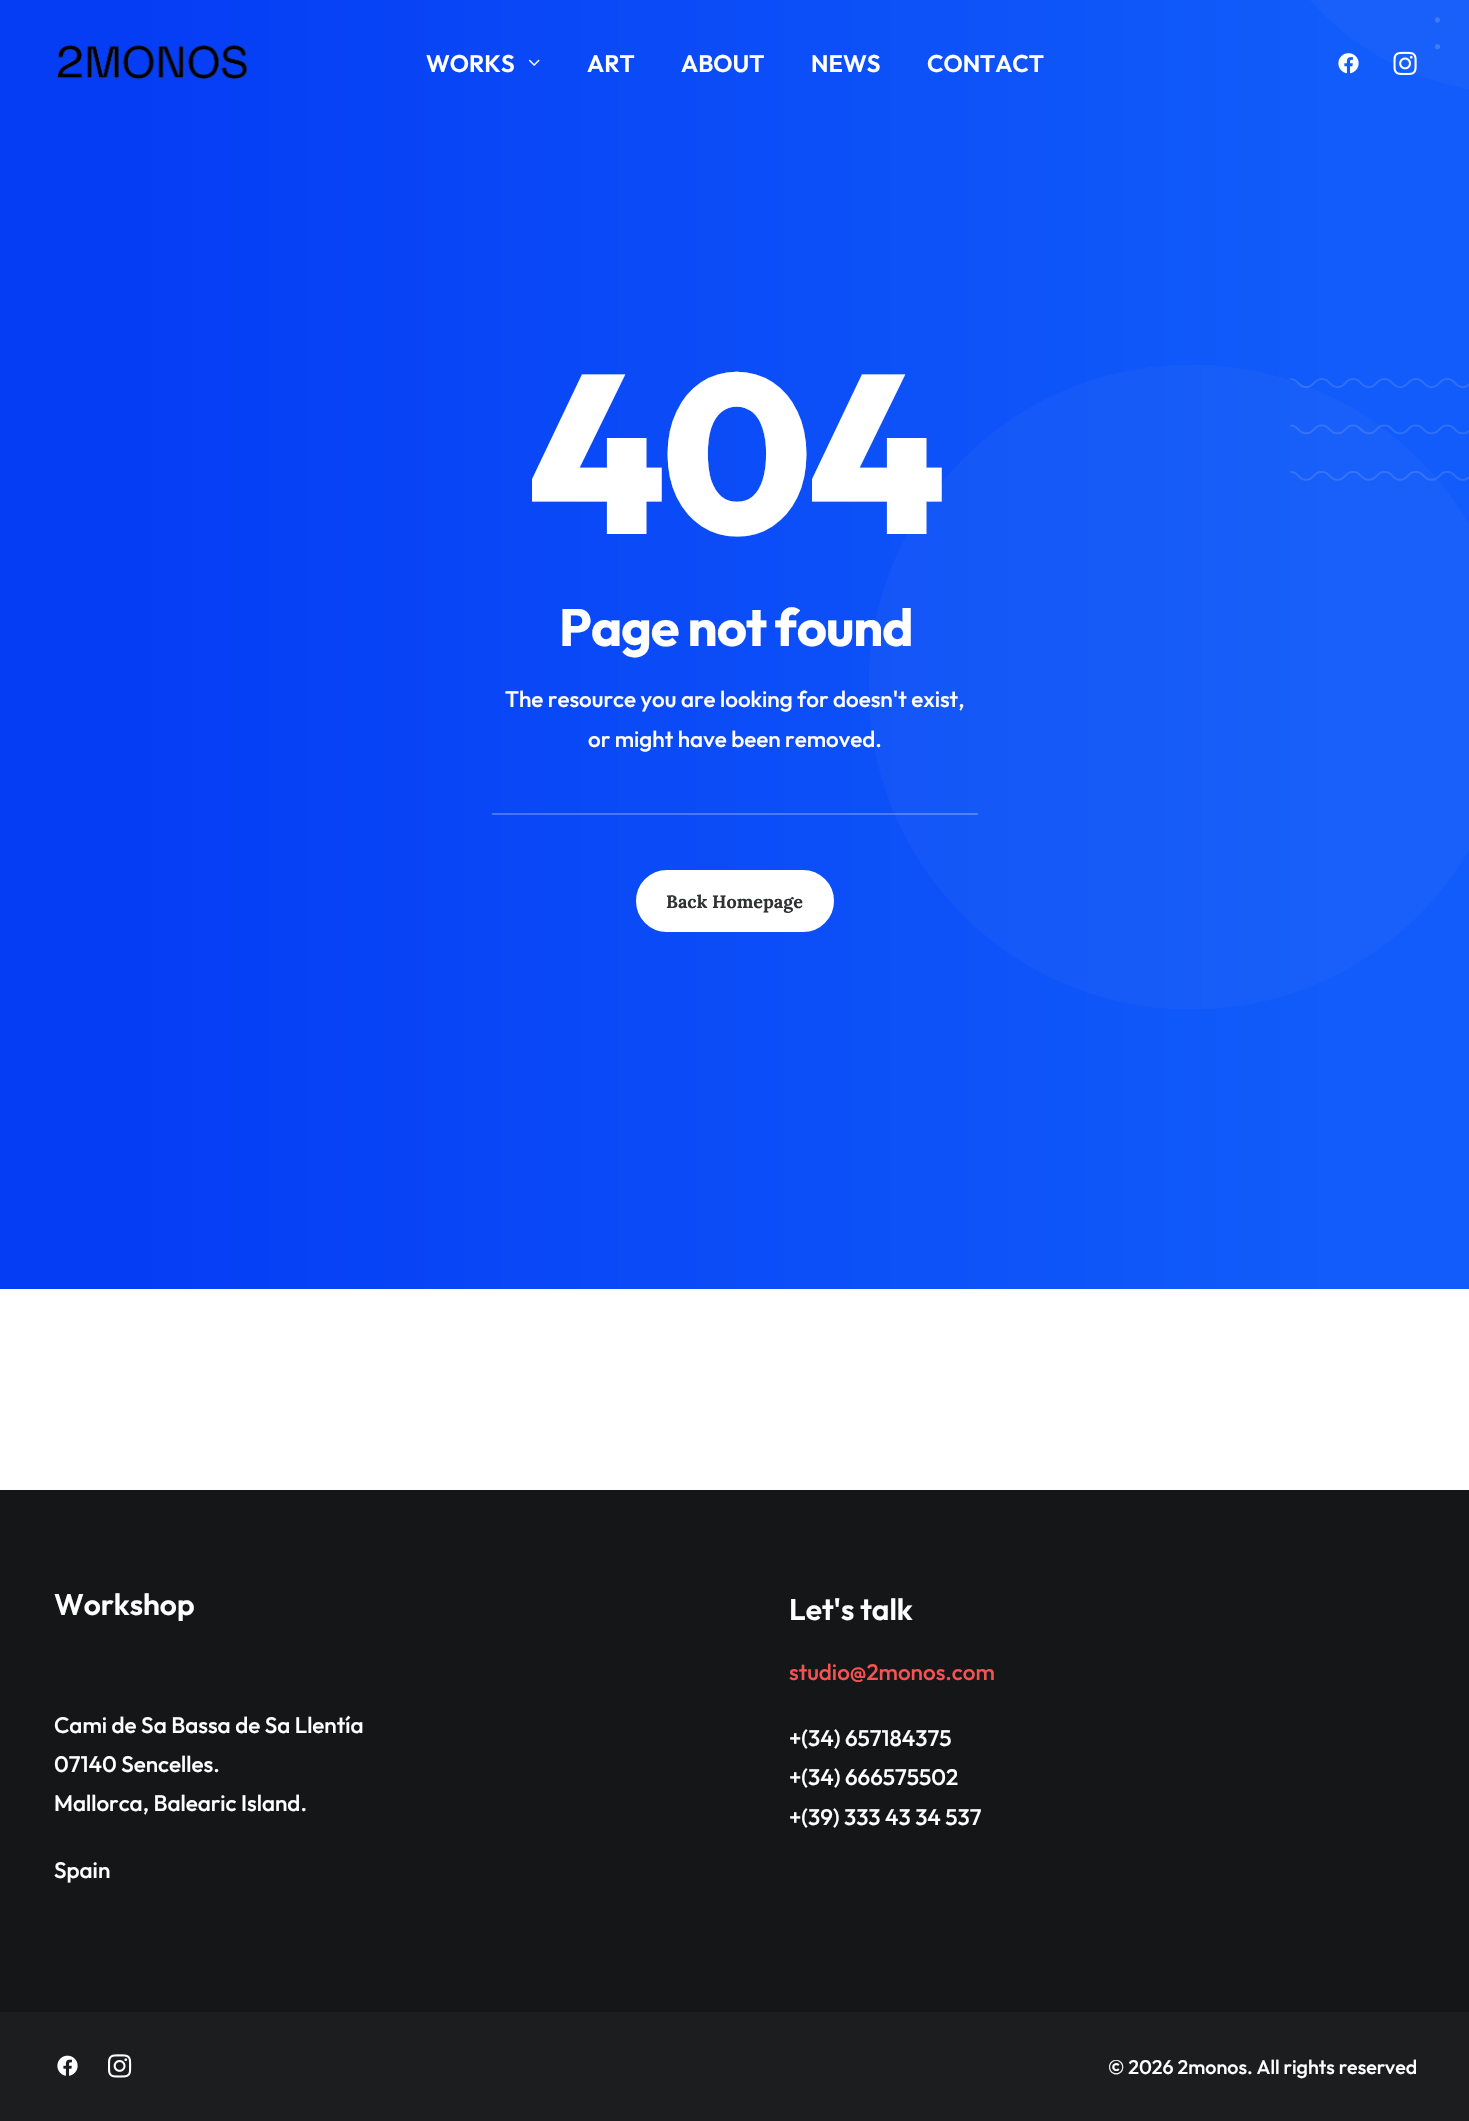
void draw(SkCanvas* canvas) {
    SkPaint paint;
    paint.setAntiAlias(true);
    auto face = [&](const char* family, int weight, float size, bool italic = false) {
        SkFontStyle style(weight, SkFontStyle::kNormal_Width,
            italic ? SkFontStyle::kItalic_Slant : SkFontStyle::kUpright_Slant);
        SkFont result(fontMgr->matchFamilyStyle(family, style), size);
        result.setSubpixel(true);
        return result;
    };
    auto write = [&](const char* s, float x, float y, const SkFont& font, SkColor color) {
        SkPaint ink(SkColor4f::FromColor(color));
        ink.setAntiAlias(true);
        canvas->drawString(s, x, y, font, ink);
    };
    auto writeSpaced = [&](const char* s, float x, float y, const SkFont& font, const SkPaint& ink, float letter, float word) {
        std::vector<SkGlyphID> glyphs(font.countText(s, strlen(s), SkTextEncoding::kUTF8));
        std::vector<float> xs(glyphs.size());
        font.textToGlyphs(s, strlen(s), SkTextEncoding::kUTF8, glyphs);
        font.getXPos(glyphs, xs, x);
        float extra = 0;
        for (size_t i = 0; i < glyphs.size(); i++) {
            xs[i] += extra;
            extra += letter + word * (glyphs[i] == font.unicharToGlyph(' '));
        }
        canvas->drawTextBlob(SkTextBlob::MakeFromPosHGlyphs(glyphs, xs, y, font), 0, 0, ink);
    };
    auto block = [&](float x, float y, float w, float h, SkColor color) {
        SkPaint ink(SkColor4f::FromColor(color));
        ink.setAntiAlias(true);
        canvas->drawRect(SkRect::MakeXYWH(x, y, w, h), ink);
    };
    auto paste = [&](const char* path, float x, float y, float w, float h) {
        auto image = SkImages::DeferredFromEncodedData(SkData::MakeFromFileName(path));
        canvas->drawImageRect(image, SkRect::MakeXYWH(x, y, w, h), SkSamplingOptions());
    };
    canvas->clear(SkColorSetRGB(20, 22, 24));
    {
        const SkColor colors[] = {SkColorSetRGB(17, 92, 250), SkColorSetRGB(5, 61, 245)};
        const float stops[] = {0.09f, 0.91f};
        const SkPoint ends[] = {{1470, 644}, {0, 644}};
        paint.setShader(SkGradientShader::MakeLinear(ends, colors, stops, 2, SkTileMode::kClamp));
        paint.setAlpha(255);
    }
    canvas->drawRect(SkRect::MakeXYWH(0, 0, 1469, 1289), paint);
    paste("pic1.png", 56, 45, 192, 35);
    auto kFont1 = face("Outfit", 600, 24);
    write("WORKS", 426, 72, kFont1, SK_ColorWHITE);
    paste("pic2.png", 528, 59, 12, 7);
    write("ART", 587, 72, kFont1, SK_ColorWHITE);
    write("ABOUT", 681, 72, kFont1, SK_ColorWHITE);
    paste("pic5.png", 869, 0, 600, 1009);
    write("NEWS", 811, 72, kFont1, SK_ColorWHITE);
    write("CONTACT", 927, 72, kFont1, SK_ColorWHITE);
    paste("pic3.png", 1338, 53, 21, 21);
    paste("pic4.png", 1393, 51, 24, 24);
    auto kFont2 = face("Outfit", 800, 225);
    paint.setShader(nullptr);
    paint.setColor(SK_ColorWHITE);
    writeSpaced("404", 528, 534, kFont2, paint, -4.5f, 0);
    auto kFont3 = face("Outfit", 700, 52.5f);
    writeSpaced("Page not found", 559, 646, kFont3, paint, -1, 0);
    auto kFont4 = face("Outfit", 500, 22.5f);
    write("The resource you are looking for doesn't exist,", 505, 707, kFont4, SK_ColorWHITE);
    write("or might have been removed.", 588, 747, kFont4, SK_ColorWHITE);
    block(492, 813, 486, 2, SkColorSetARGB(64, 255, 255, 255));
    canvas->drawRoundRect(SkRect::MakeXYWH(637, 871, 196, 60), 30, 30, paint);
    paint.setStyle(SkPaint::kStroke_Style);
    paint.setStrokeWidth(2);
    canvas->drawRoundRect(SkRect::MakeXYWH(637, 871, 196, 60), 30, 30, paint);
    auto kFont5 = face("Lora", 700, 18);
    write("Back Homepage", 666, 908, kFont5, SkColorSetRGB(48, 49, 51));
    block(0, 1289, 1469, 201, SK_ColorWHITE);
    auto kFont6 = face("Outfit", 600, 30);
    write("Workshop", 54, 1615, kFont6, SK_ColorWHITE);
    write("Cami de Sa Bassa de Sa Llentía", 54, 1733, kFont4, SK_ColorWHITE);
    write("07140 Sencelles.", 54, 1772, kFont4, SK_ColorWHITE);
    write("Mallorca, Balearic Island.", 54, 1811, kFont4, SK_ColorWHITE);
    write("Spain", 54, 1878, kFont4, SK_ColorWHITE);
    write("Let's talk", 789, 1620, kFont6, SK_ColorWHITE);
    write("studio@2monos.com", 789, 1680, kFont4, SkColorSetRGB(247, 82, 82));
    write("+(34) 657184375", 789, 1746, kFont4, SK_ColorWHITE);
    write("+(34) 666575502", 789, 1785, kFont4, SK_ColorWHITE);
    write("+(39) 333 43 34 537", 789, 1825, kFont4, SK_ColorWHITE);
    block(0, 2012, 1469, 109, SkColorSetRGB(27, 29, 31));
    paste("pic6.png", 57, 2055, 21, 21);
    paste("pic7.png", 108, 2054, 24, 24);
    auto kFont7 = face("Outfit", 500, 19.75f);
    write("© 2026 2monos. All rights reserved", 1108, 2074, kFont7, SK_ColorWHITE);
}
